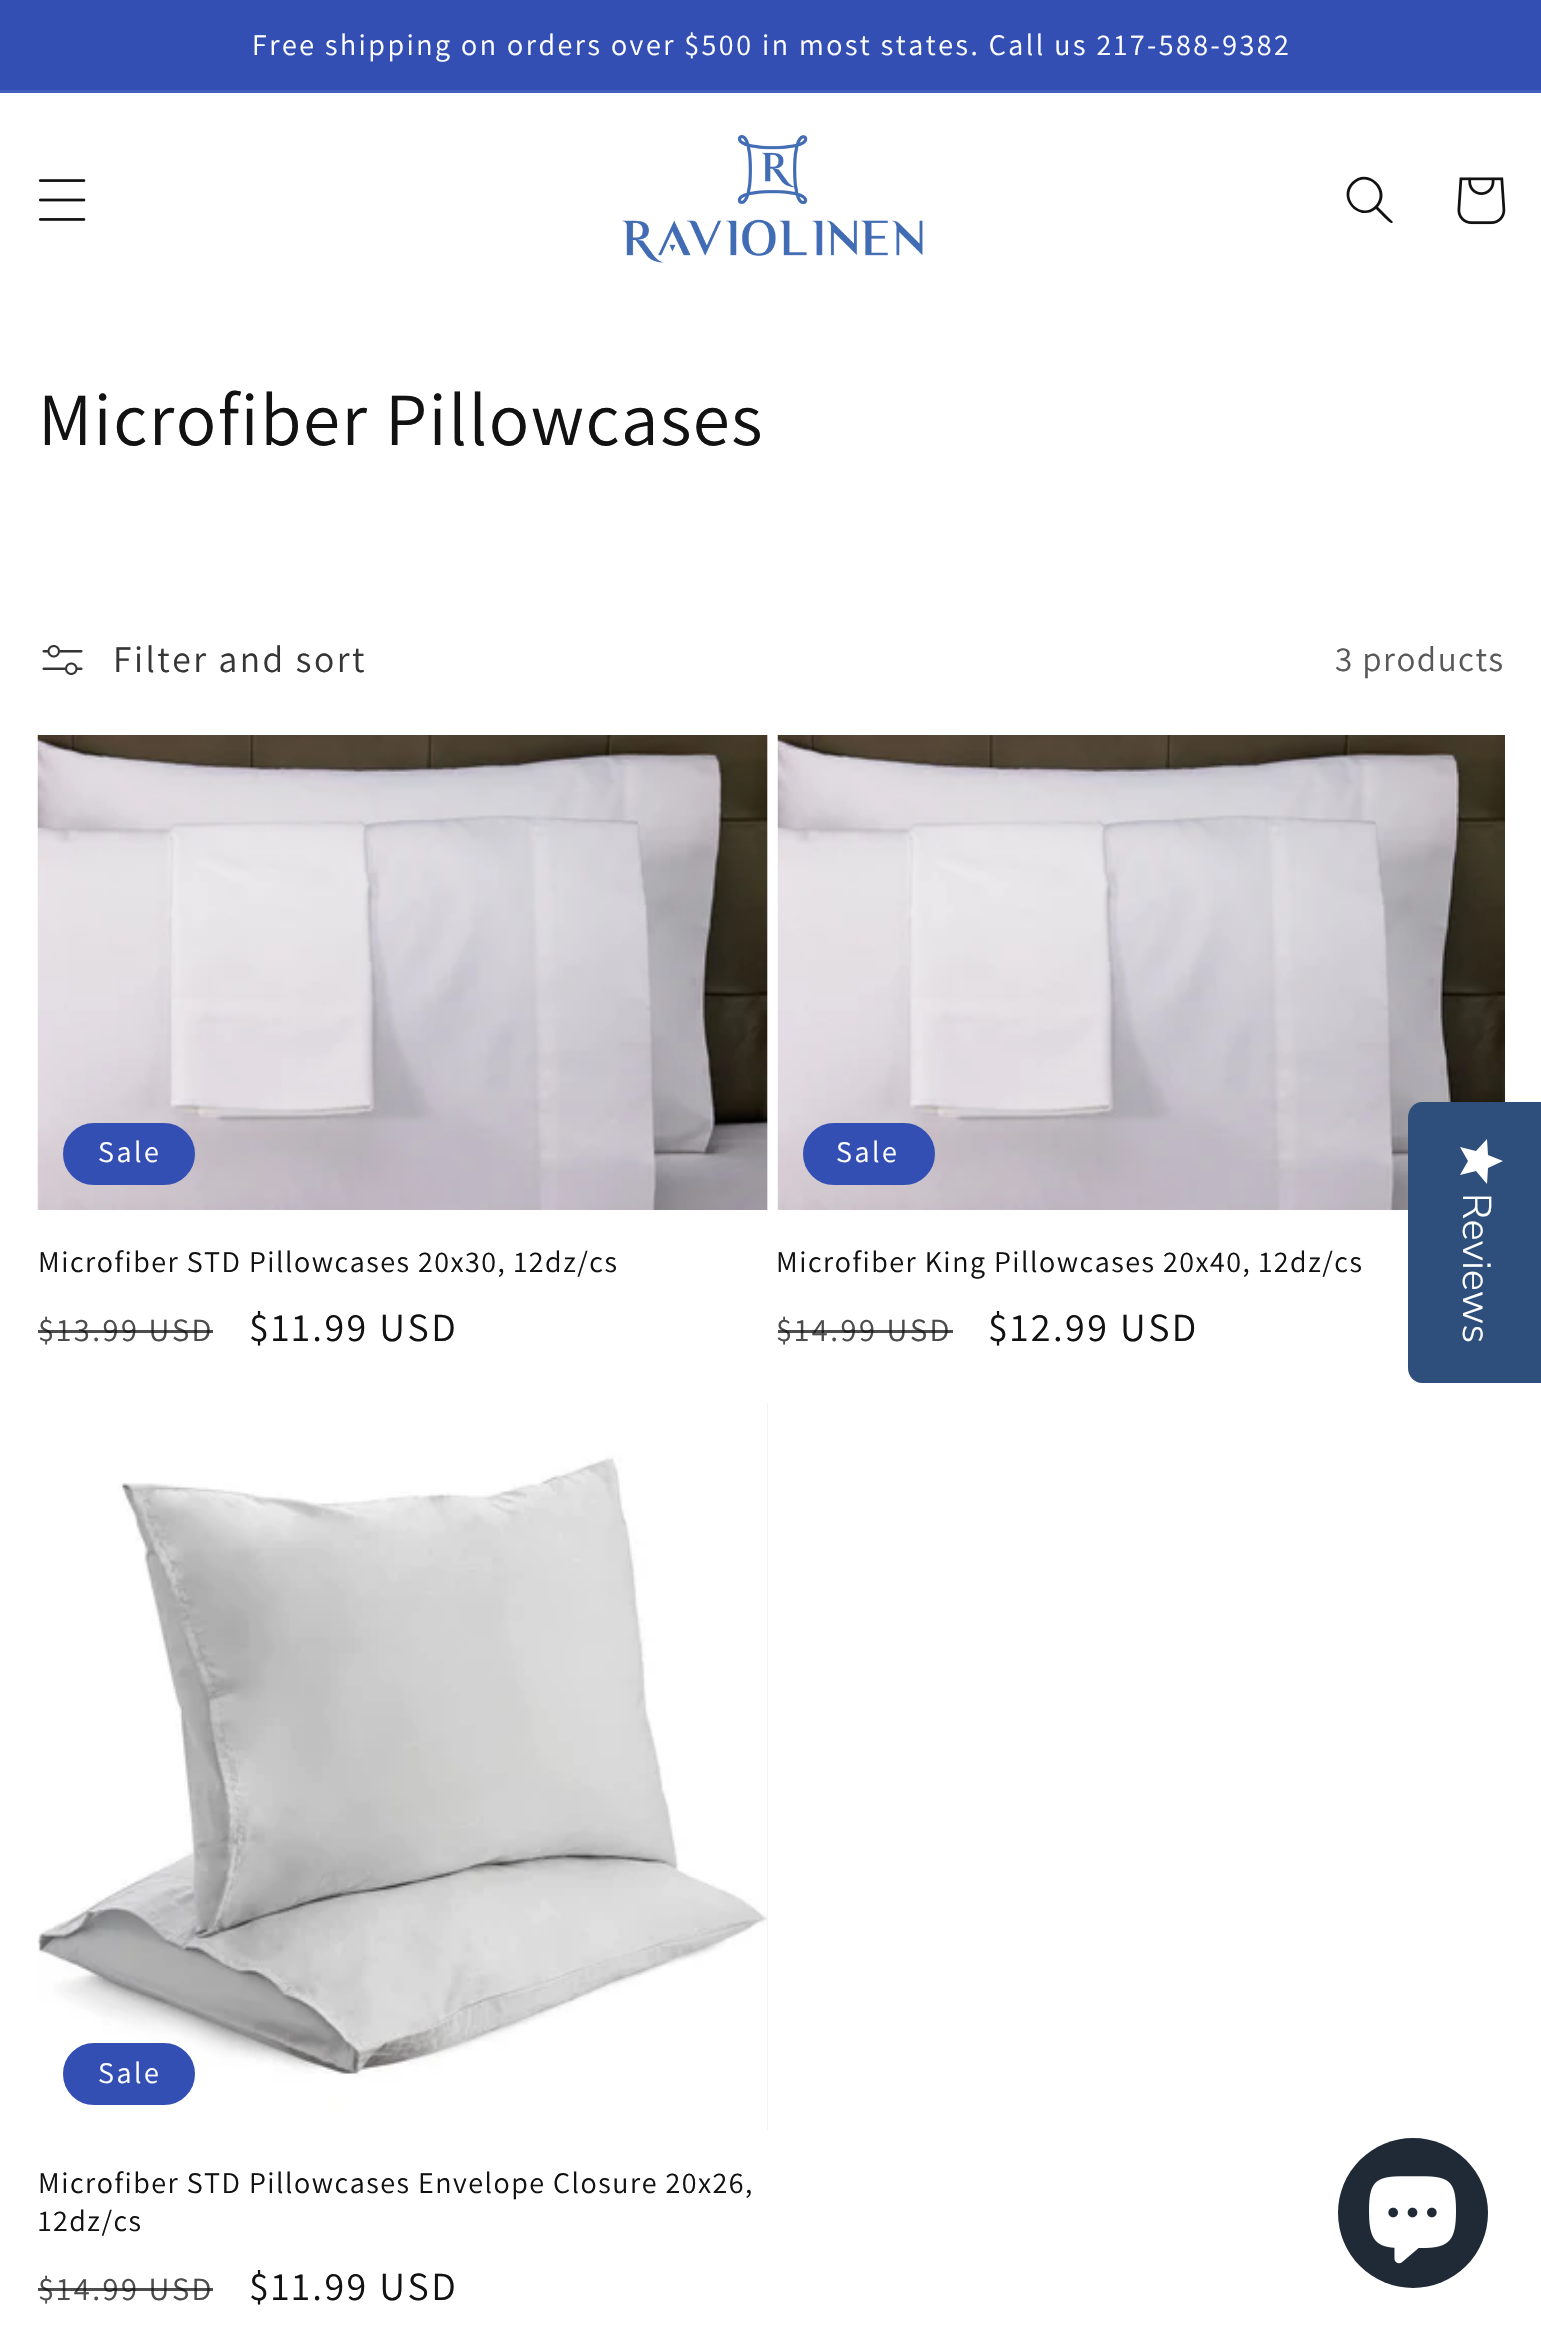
void draw(SkCanvas* canvas) {
    SkPaint paint;
    paint.setAntiAlias(true);
    auto face = [&](const char* family, int weight, float size, bool italic = false) {
        SkFontStyle style(weight, SkFontStyle::kNormal_Width,
            italic ? SkFontStyle::kItalic_Slant : SkFontStyle::kUpright_Slant);
        SkFont result(fontMgr->matchFamilyStyle(family, style), size);
        result.setSubpixel(true);
        return result;
    };
    auto write = [&](const char* s, float x, float y, const SkFont& font, SkColor color) {
        SkPaint ink(SkColor4f::FromColor(color));
        ink.setAntiAlias(true);
        canvas->drawString(s, x, y, font, ink);
    };
    auto writeSpaced = [&](const char* s, float x, float y, const SkFont& font, const SkPaint& ink, float letter, float word) {
        std::vector<SkGlyphID> glyphs(font.countText(s, strlen(s), SkTextEncoding::kUTF8));
        std::vector<float> xs(glyphs.size());
        font.textToGlyphs(s, strlen(s), SkTextEncoding::kUTF8, glyphs);
        font.getXPos(glyphs, xs, x);
        float extra = 0;
        for (size_t i = 0; i < glyphs.size(); i++) {
            xs[i] += extra;
            extra += letter + word * (glyphs[i] == font.unicharToGlyph(' '));
        }
        canvas->drawTextBlob(SkTextBlob::MakeFromPosHGlyphs(glyphs, xs, y, font), 0, 0, ink);
    };
    auto block = [&](float x, float y, float w, float h, SkColor color) {
        SkPaint ink(SkColor4f::FromColor(color));
        ink.setAntiAlias(true);
        canvas->drawRect(SkRect::MakeXYWH(x, y, w, h), ink);
    };
    auto paste = [&](const char* path, float x, float y, float w, float h) {
        auto image = SkImages::DeferredFromEncodedData(SkData::MakeFromFileName(path));
        canvas->drawImageRect(image, SkRect::MakeXYWH(x, y, w, h), SkSamplingOptions());
    };
    canvas->clear(SK_ColorWHITE);
    block(0, 0, 1541, 90, SkColorSetRGB(51, 79, 180));
    block(0, 90, 1541, 3, SkColorSetRGB(67, 93, 186));
    auto kFont1 = face("Assistant", 400, 30);
    paint.setColor(SK_ColorWHITE);
    writeSpaced("Free shipping on orders over $500 in most states. Call us 217-588-9382", 252, 55, kFont1, paint, 2.5f, 0);
    paste("pic1.png", 38, 179, 48, 42);
    paste("pic2.png", 622, 135, 301, 128);
    paint.setColor(SkColorSetRGB(18, 18, 18));
    canvas->drawPath(SkPathBuilder(SkPathFillType::kEvenOdd).moveTo(1375, 206).cubicTo(1361, 220, 1340, 198, 1354, 184).cubicTo(1368, 170, 1389, 192, 1375, 206).close().moveTo(1376, 209).cubicTo(1359, 223, 1336, 198, 1352, 182).cubicTo(1368, 166, 1393, 190, 1378, 207).lineTo(1393, 222).lineTo(1392, 223).cubicTo(1390, 224, 1378, 211, 1376, 209).close().detach(), paint);
    paste("pic3.png", 1457, 177, 49, 48);
    auto kFont2 = face("Assistant", 400, 75);
    writeSpaced("Microfiber Pillowcases", 38, 445, kFont2, paint, 1.5f, 0);
    paste("pic4.png", 42, 645, 41, 30);
    auto kFont3 = face("Assistant", 400, 37.5f);
    paint.setColor(SkColorSetRGB(54, 54, 54));
    writeSpaced("Filter and sort", 113, 672, kFont3, paint, 2.5f, 0);
    auto kFont4 = face("Assistant", 400, 35);
    paint.setColor(SkColorSetRGB(89, 89, 89));
    writeSpaced("3 products", 1335, 671, kFont4, paint, 1.5f, 0);
    block(767, 735, 1, 475, SkColorSetRGB(243, 243, 243));
    paste("pic5.png", 37, 735, 731, 475);
    paint.setColor(SkColorSetRGB(51, 79, 180));
    canvas->drawRoundRect(SkRect::MakeXYWH(64.5f, 1124.5f, 129, 59), 29.5f, 29.5f, paint);
    paint.setStyle(SkPaint::kStroke_Style);
    paint.setStrokeWidth(3);
    canvas->drawRoundRect(SkRect::MakeXYWH(64.5f, 1124.5f, 129, 59), 29.5f, 29.5f, paint);
    paint.setStyle(SkPaint::kFill_Style);
    paint.setColor(SK_ColorWHITE);
    writeSpaced("Sale", 98, 1162, kFont1, paint, 2.5f, 0);
    paint.setColor(SkColorSetRGB(18, 18, 18));
    writeSpaced("Microfiber STD Pillowcases 20x30, 12dz/cs", 38, 1272, kFont1, paint, 1.5f, 0);
    auto kFont5 = face("Assistant", 400, 32.5f);
    paint.setColor(SkColorSetRGB(77, 77, 77));
    writeSpaced("$13.99 USD", 38, 1341, kFont5, paint, 2.5f, 0);
    block(38, 1330, 175, 3, SkColorSetARGB(191, 18, 18, 18));
    auto kFont6 = face("Assistant", 400, 40);
    paint.setColor(SkColorSetRGB(18, 18, 18));
    writeSpaced("$11.99 USD", 249, 1341, kFont6, paint, 2.5f, 0);
    paste("pic6.png", 777, 735, 728, 475);
    paint.setColor(SkColorSetRGB(51, 79, 180));
    canvas->drawRoundRect(SkRect::MakeXYWH(804.5f, 1124.5f, 129, 59), 29.5f, 29.5f, paint);
    paint.setStyle(SkPaint::kStroke_Style);
    canvas->drawRoundRect(SkRect::MakeXYWH(804.5f, 1124.5f, 129, 59), 29.5f, 29.5f, paint);
    paint.setStyle(SkPaint::kFill_Style);
    paint.setColor(SK_ColorWHITE);
    writeSpaced("Sale", 836, 1162, kFont1, paint, 2.5f, 0);
    paint.setColor(SkColorSetRGB(18, 18, 18));
    writeSpaced("Microfiber King Pillowcases 20x40, 12dz/cs", 776, 1272, kFont1, paint, 1.5f, 0);
    paint.setColor(SkColorSetRGB(77, 77, 77));
    writeSpaced("$14.99 USD", 776, 1341, kFont5, paint, 2.5f, 0);
    block(778, 1330, 175, 3, SkColorSetARGB(191, 18, 18, 18));
    paint.setColor(SkColorSetRGB(18, 18, 18));
    writeSpaced("$12.99 USD", 988, 1341, kFont6, paint, 2.5f, 0);
    block(767, 1403, 1, 727, SkColorSetRGB(243, 243, 243));
    paste("pic7.png", 37, 1403, 730, 727);
    paint.setColor(SkColorSetRGB(51, 79, 180));
    canvas->drawRoundRect(SkRect::MakeXYWH(64.5f, 2044.5f, 129, 59), 29.5f, 29.5f, paint);
    paint.setStyle(SkPaint::kStroke_Style);
    canvas->drawRoundRect(SkRect::MakeXYWH(64.5f, 2044.5f, 129, 59), 29.5f, 29.5f, paint);
    paint.setStyle(SkPaint::kFill_Style);
    paint.setColor(SK_ColorWHITE);
    writeSpaced("Sale", 98, 2083, kFont1, paint, 2.5f, 0);
    paint.setColor(SkColorSetRGB(18, 18, 18));
    writeSpaced("Microfiber STD Pillowcases Envelope Closure 20x26,", 38, 2193, kFont1, paint, 1.5f, 0);
    writeSpaced("12dz/cs", 38, 2231, kFont1, paint, 1.5f, 0);
    paint.setColor(SkColorSetRGB(77, 77, 77));
    writeSpaced("$14.99 USD", 38, 2300, kFont5, paint, 2.5f, 0);
    block(38, 2288, 175, 3, SkColorSetARGB(191, 18, 18, 18));
    paint.setColor(SkColorSetRGB(18, 18, 18));
    writeSpaced("$11.99 USD", 249, 2300, kFont6, paint, 2.5f, 0);
    paint.setColor(SkColorSetRGB(46, 79, 124));
    canvas->drawPath(SkPathBuilder().moveTo(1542, 1102).lineTo(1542, 1383).lineTo(1422, 1383).cubicTo(1414, 1383, 1408, 1376, 1408, 1368).lineTo(1408, 1118).cubicTo(1408, 1109, 1414, 1102, 1422, 1102).close().detach(), paint);
    {
        const SkColor colors[] = {SK_ColorWHITE, SkColorSetRGB(234, 234, 234)};
        const float stops[] = {1, 1};
        const SkPoint ends[] = {{1503, 1139}, {1503, 1184}};
        paint.setShader(SkGradientShader::MakeLinear(ends, colors, stops, 2, SkTileMode::kClamp));
        paint.setAlpha(255);
    }
    canvas->drawPath(SkPathBuilder().moveTo(1468, 1161).lineTo(1460, 1175).lineTo(1476, 1171).lineTo(1487, 1184).lineTo(1488, 1168).lineTo(1503, 1161).lineTo(1488, 1155).lineTo(1487, 1139).lineTo(1476, 1151).lineTo(1460, 1147).close().detach(), paint);
    auto kFont7 = face("Nunito Sans", 300, 40);
    canvas->save();
    canvas->rotate(90, 1463, 1193);
    write("Reviews", 1463, 1193, kFont7, SK_ColorWHITE);
    canvas->restore();
    paint.setShader(nullptr);
    paint.setColor(SkColorSetRGB(32, 42, 54));
    canvas->drawCircle(1413, 2213, 75, paint);
    paste("pic8.png", 1369, 2176, 87, 88);
}
